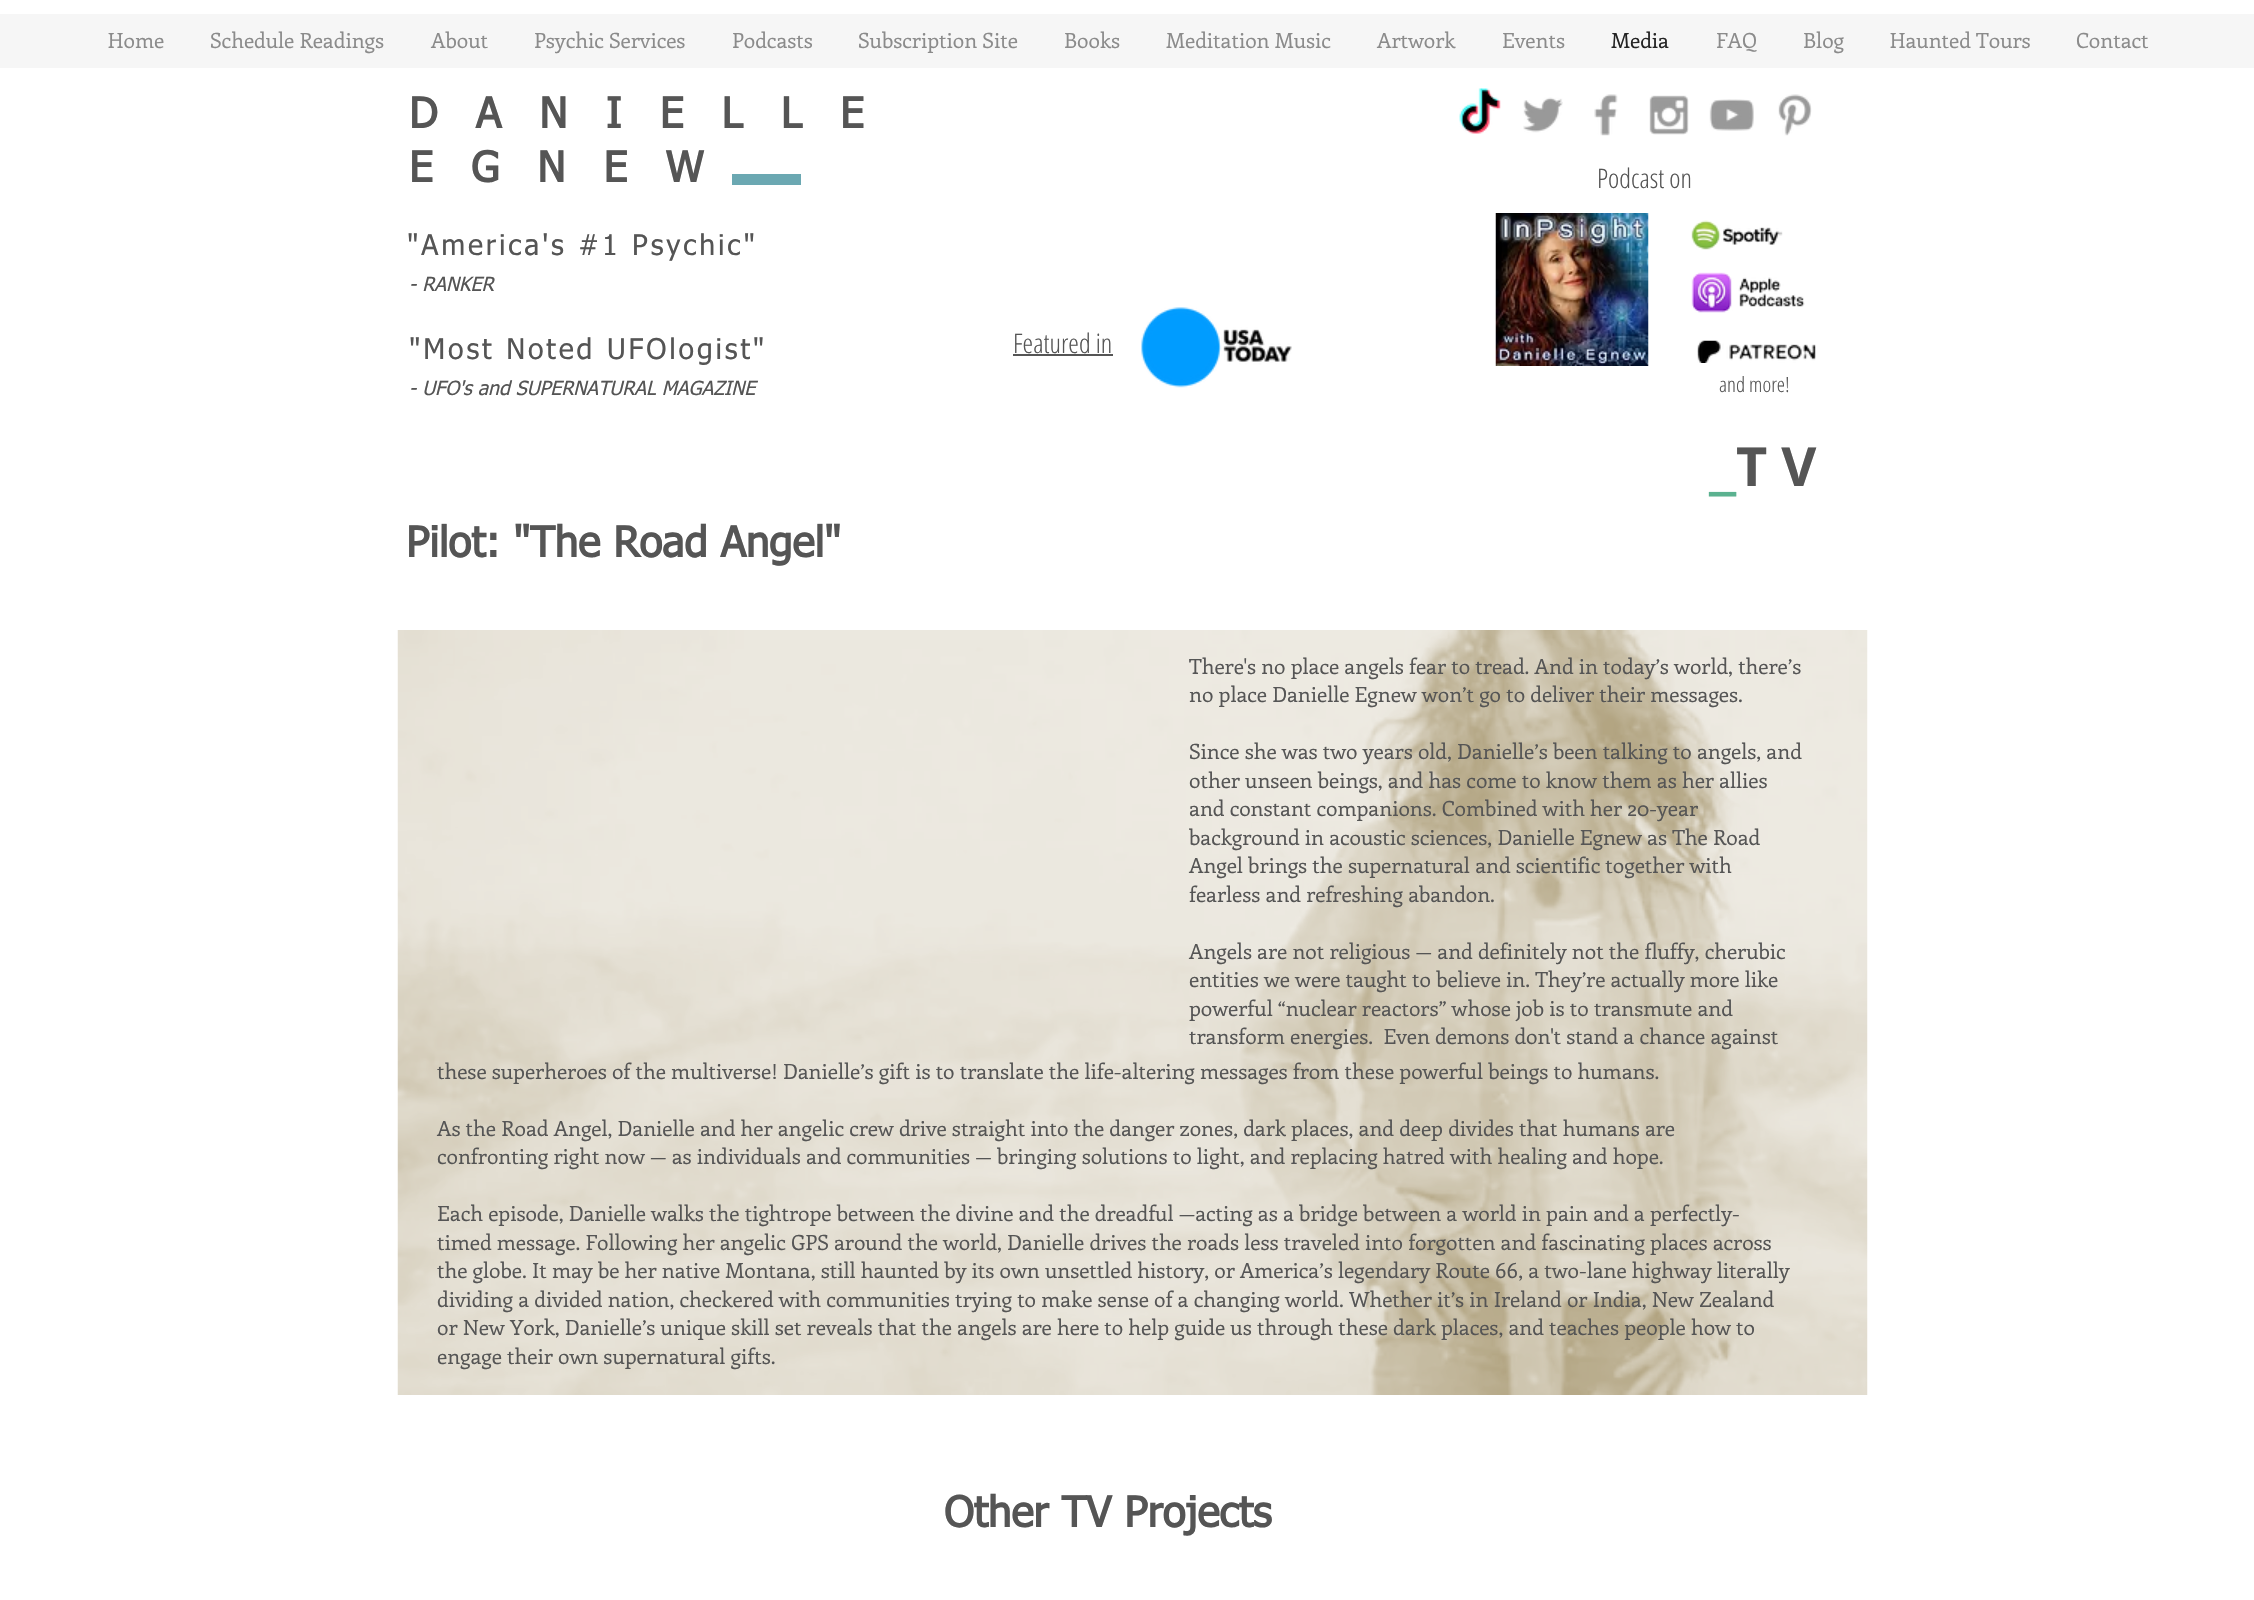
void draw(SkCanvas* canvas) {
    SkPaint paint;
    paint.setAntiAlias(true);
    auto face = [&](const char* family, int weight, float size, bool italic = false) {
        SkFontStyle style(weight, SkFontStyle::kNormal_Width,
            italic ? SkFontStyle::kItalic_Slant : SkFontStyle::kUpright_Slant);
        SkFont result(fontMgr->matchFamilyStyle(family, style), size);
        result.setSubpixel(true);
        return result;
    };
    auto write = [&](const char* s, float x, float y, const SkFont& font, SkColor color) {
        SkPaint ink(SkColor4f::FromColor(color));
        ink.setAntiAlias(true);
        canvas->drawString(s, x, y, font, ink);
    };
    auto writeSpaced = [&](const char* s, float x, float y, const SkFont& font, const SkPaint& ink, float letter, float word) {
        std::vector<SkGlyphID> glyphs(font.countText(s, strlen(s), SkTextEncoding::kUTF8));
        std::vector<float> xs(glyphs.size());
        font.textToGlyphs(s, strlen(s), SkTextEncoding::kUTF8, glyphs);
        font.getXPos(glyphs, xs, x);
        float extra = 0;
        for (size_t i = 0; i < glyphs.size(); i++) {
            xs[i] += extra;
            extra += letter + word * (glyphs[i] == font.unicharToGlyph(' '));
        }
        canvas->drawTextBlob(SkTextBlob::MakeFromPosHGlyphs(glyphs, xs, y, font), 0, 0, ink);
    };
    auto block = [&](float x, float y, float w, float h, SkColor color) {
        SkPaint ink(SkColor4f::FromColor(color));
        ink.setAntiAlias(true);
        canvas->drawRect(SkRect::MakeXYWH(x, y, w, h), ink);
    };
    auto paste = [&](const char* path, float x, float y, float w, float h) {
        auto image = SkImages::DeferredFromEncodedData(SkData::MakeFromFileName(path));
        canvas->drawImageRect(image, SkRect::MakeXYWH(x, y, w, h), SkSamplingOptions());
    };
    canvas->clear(SK_ColorWHITE);
    block(0, 14, 2254, 54, SkColorSetRGB(246, 246, 246));
    auto kFont1 = face("Enriqueta", 400, 21);
    write("Home", 108, 48, kFont1, SkColorSetRGB(139, 139, 139));
    write("Schedule Readings", 210, 48, kFont1, SkColorSetRGB(139, 139, 139));
    write("About", 431, 48, kFont1, SkColorSetRGB(139, 139, 139));
    write("Psychic Services", 534, 48, kFont1, SkColorSetRGB(139, 139, 139));
    write("Podcasts", 732, 48, kFont1, SkColorSetRGB(139, 139, 139));
    write("Subscription Site", 858, 48, kFont1, SkColorSetRGB(139, 139, 139));
    write("Books", 1064, 48, kFont1, SkColorSetRGB(139, 139, 139));
    write("Meditation Music", 1166, 48, kFont1, SkColorSetRGB(139, 139, 139));
    write("Artwork", 1377, 48, kFont1, SkColorSetRGB(139, 139, 139));
    write("Events", 1502, 48, kFont1, SkColorSetRGB(139, 139, 139));
    write("Media", 1611, 48, kFont1, SkColorSetRGB(36, 36, 36));
    write("FAQ", 1716, 48, kFont1, SkColorSetRGB(139, 139, 139));
    write("Blog", 1803, 48, kFont1, SkColorSetRGB(139, 139, 139));
    write("Haunted Tours", 1890, 48, kFont1, SkColorSetRGB(139, 139, 139));
    write("Contact", 2076, 48, kFont1, SkColorSetRGB(139, 139, 139));
    auto kFont2 = face("tahoma", 700, 42);
    paint.setColor(SkColorSetRGB(85, 85, 85));
    writeSpaced("D A N I E L L E", 409, 128, kFont2, paint, 12.6f, 0);
    writeSpaced("E G N E W", 409, 182, kFont2, paint, 12.6f, 0);
    paste("pic1.png", 1459, 88, 42, 46);
    paste("pic2.png", 1523, 97, 40, 36);
    paste("pic3.png", 1594, 94, 24, 42);
    paste("pic4.png", 1649, 95, 40, 40);
    paste("pic5.png", 1709, 99, 45, 32);
    paste("pic6.png", 1778, 94, 34, 42);
    block(732, 174, 69, 11, SkColorSetRGB(107, 168, 178));
    auto kFont3 = face("Open Sans Condensed", 300, 27);
    write("Podcast on", 1597, 188, kFont3, SkColorSetRGB(85, 85, 85));
    auto kFont4 = face("tahoma", 400, 28.5f);
    writeSpaced("\"America's #1 Psychic\"", 407, 255, kFont4, paint, 2.85f, 0);
    paste("pic7.png", 1495, 213, 154, 153);
    paste("pic8.png", 1691, 220, 92, 30);
    auto kFont5 = face("tahoma", 400, 19.5f, true);
    write("- RANKER", 409, 291, kFont5, SkColorSetRGB(85, 85, 85));
    paste("pic9.png", 1691, 272, 114, 41);
    writeSpaced("\"Most Noted UFOlogist\"", 409, 359, kFont4, paint, 2.85f, 0);
    write("Featured in", 1013, 353, kFont3, SkColorSetRGB(85, 85, 85));
    block(1013, 354, 100, 2, SkColorSetRGB(85, 85, 85));
    paste("pic10.png", 1141, 307, 151, 81);
    paste("pic11.png", 1697, 340, 119, 23);
    write("- UFO's and SUPERNATURAL MAGAZINE", 409, 395, kFont5, SkColorSetRGB(85, 85, 85));
    auto kFont6 = face("Open Sans Condensed", 300, 21);
    write("and more!", 1719, 392, kFont6, SkColorSetRGB(85, 85, 85));
    auto kFont7 = face("Open Sans", 700, 54);
    write("T V", 1736, 486, kFont7, SkColorSetRGB(85, 85, 85));
    auto kFont8 = face("Open Sans", 700, 66);
    write("_", 1709, 486, kFont8, SkColorSetRGB(91, 178, 144));
    write("Pilot: \"The Road Angel\"", 406, 557, kFont2, SkColorSetRGB(85, 85, 85));
    paste("pic12.png", 397, 630, 1471, 765);
    write("There's no place angels fear to tread. And in today’s world, there’s", 1189, 674, kFont1, SkColorSetRGB(85, 85, 85));
    write("no place Danielle Egnew won’t go to deliver their messages.", 1189, 702, kFont1, SkColorSetRGB(85, 85, 85));
    write("Since she was two years old, Danielle’s been talking to angels, and", 1189, 759, kFont1, SkColorSetRGB(85, 85, 85));
    write("other unseen beings, and has come to know them as her allies", 1189, 788, kFont1, SkColorSetRGB(85, 85, 85));
    write("and constant companions. Combined with her 20-year", 1189, 816, kFont1, SkColorSetRGB(85, 85, 85));
    write("background in acoustic sciences, Danielle Egnew as The Road", 1189, 845, kFont1, SkColorSetRGB(85, 85, 85));
    write("Angel brings the supernatural and scientific together with", 1189, 873, kFont1, SkColorSetRGB(85, 85, 85));
    write("fearless and refreshing abandon.", 1189, 902, kFont1, SkColorSetRGB(85, 85, 85));
    write("Angels are not religious — and definitely not the fluffy, cherubic", 1189, 959, kFont1, SkColorSetRGB(85, 85, 85));
    write("entities we were taught to believe in. They’re actually more like", 1189, 987, kFont1, SkColorSetRGB(85, 85, 85));
    write("powerful “nuclear reactors” whose job is to transmute and", 1189, 1016, kFont1, SkColorSetRGB(85, 85, 85));
    write("transform energies.  Even demons don't stand a chance against", 1189, 1044, kFont1, SkColorSetRGB(85, 85, 85));
    write("these superheroes of the multiverse! Danielle’s gift is to translate the life-altering messages from these powerful beings to humans.", 437, 1079, kFont1, SkColorSetRGB(85, 85, 85));
    write("As the Road Angel, Danielle and her angelic crew drive straight into the danger zones, dark places, and deep divides that humans are", 437, 1136, kFont1, SkColorSetRGB(85, 85, 85));
    write("confronting right now — as individuals and communities — bringing solutions to light, and replacing hatred with healing and hope.", 437, 1164, kFont1, SkColorSetRGB(85, 85, 85));
    write("Each episode, Danielle walks the tightrope between the divine and the dreadful —acting as a bridge between a world in pain and a perfectly-", 437, 1221, kFont1, SkColorSetRGB(85, 85, 85));
    write("timed message. Following her angelic GPS around the world, Danielle drives the roads less traveled into forgotten and fascinating places across", 437, 1250, kFont1, SkColorSetRGB(85, 85, 85));
    write("the globe. It may be her native Montana, still haunted by its own unsettled history, or America’s legendary Route 66, a two-lane highway literally", 437, 1278, kFont1, SkColorSetRGB(85, 85, 85));
    write("dividing a divided nation, checkered with communities trying to make sense of a changing world. Whether it’s in Ireland or India, New Zealand", 437, 1307, kFont1, SkColorSetRGB(85, 85, 85));
    write("or New York, Danielle’s unique skill set reveals that the angels are here to help guide us through these dark places, and teaches people how to", 437, 1335, kFont1, SkColorSetRGB(85, 85, 85));
    write("engage their own supernatural gifts.", 437, 1364, kFont1, SkColorSetRGB(85, 85, 85));
    write("Other TV Projects", 944, 1527, kFont2, SkColorSetRGB(85, 85, 85));
}
